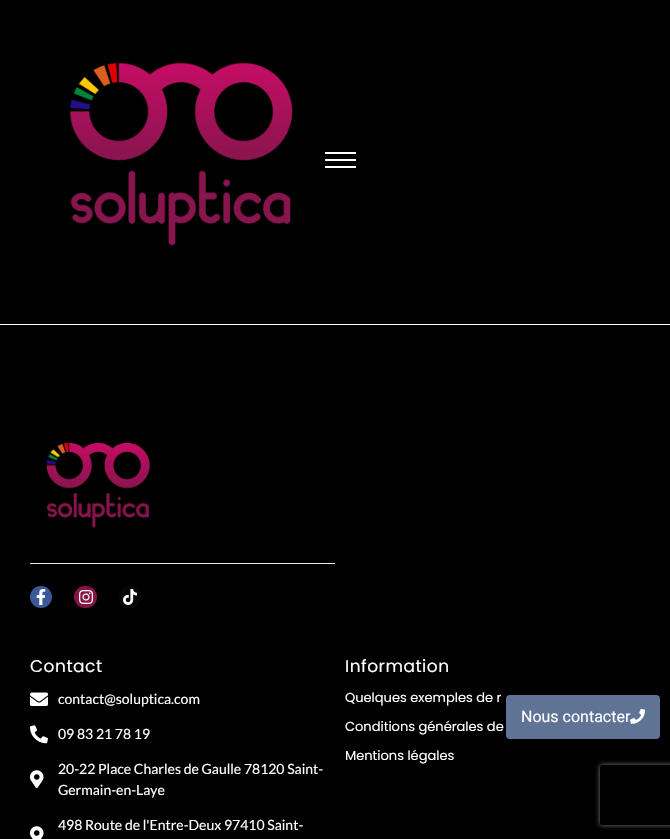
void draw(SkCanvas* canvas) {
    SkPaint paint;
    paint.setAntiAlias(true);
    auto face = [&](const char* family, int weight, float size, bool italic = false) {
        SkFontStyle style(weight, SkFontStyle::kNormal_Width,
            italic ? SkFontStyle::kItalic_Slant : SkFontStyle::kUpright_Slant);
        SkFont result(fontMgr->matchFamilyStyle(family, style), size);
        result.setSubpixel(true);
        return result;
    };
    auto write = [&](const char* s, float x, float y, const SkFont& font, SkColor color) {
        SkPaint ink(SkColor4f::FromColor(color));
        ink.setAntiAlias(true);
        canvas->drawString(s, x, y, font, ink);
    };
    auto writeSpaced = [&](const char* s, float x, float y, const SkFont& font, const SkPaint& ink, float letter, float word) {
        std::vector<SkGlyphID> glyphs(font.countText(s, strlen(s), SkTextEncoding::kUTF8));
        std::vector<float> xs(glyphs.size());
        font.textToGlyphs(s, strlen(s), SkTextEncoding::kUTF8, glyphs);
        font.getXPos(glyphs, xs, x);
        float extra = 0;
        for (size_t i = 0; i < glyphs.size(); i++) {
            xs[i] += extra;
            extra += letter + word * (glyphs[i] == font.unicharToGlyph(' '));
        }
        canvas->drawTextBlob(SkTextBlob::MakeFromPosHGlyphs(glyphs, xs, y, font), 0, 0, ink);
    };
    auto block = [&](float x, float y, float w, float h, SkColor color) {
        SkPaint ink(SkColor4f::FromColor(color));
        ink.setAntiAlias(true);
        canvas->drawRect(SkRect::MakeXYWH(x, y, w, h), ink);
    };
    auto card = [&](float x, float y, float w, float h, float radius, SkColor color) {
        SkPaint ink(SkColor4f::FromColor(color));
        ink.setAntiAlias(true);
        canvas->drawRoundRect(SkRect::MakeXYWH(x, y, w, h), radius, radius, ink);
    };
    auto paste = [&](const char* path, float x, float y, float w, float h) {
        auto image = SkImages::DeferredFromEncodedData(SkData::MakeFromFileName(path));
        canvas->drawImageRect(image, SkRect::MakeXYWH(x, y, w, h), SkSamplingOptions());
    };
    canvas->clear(SK_ColorWHITE);
    block(0, 0, 670, 324, SK_ColorBLACK);
    paste("pic1.png", 69, 62, 224, 184);
    block(325, 152, 31, 2, SK_ColorWHITE);
    block(325, 159, 31, 2, SK_ColorWHITE);
    block(325, 166, 31, 2, SK_ColorWHITE);
    block(0, 325, 670, 514, SK_ColorBLACK);
    paste("pic2.png", 46, 442, 104, 86);
    block(30, 563, 305, 1, SkColorSetRGB(236, 236, 236));
    paint.setColor(SkColorSetRGB(59, 89, 152));
    canvas->drawCircle(41, 597, 11, paint);
    paste("pic3.png", 36, 589, 10, 16);
    card(74, 586, 23, 22, 11, SkColorSetRGB(134, 21, 70));
    paste("pic4.png", 79, 590, 14, 14);
    paint.setColor(SkColorSetRGB(7, 7, 7));
    canvas->drawCircle(130, 597, 11, paint);
    paste("pic5.png", 123, 589, 14, 16);
    auto kFont1 = face("Poppins", 400, 17);
    paint.setColor(SK_ColorWHITE);
    writeSpaced("Contact", 30, 672, kFont1, paint, 0.5f, 0);
    paste("pic6.png", 30, 692, 18, 14);
    auto kFont2 = face("Lato", 400, 14);
    write("contact@soluptica.com", 58, 704, kFont2, SK_ColorWHITE);
    paste("pic7.png", 30, 725, 18, 19);
    write("09 83 21 78 19", 58, 739, kFont2, SK_ColorWHITE);
    paste("pic8.png", 30, 770, 14, 19);
    write("20-22 Place Charles de Gaulle 78120 Saint-", 58, 774, kFont2, SK_ColorWHITE);
    write("Germain-en-Laye", 58, 795, kFont2, SK_ColorWHITE);
    paste("pic9.png", 30, 826, 14, 13);
    write("498 Route de l'Entre-Deux 97410 Saint-", 58, 830, kFont2, SK_ColorWHITE);
    writeSpaced("Information", 345, 672, kFont1, paint, 0.5f, 0);
    auto kFont3 = face("Poppins", 400, 13);
    write("Quelques exemples de r", 345, 702, kFont3, SK_ColorWHITE);
    write("Conditions générales de", 345, 731, kFont3, SK_ColorWHITE);
    write("Mentions légales", 345, 760, kFont3, SK_ColorWHITE);
    card(506, 695, 154, 44, 4, SkColorSetRGB(95, 115, 149));
    auto kFont4 = face("Roboto", 400, 16);
    write("Nous contacter", 521, 722, kFont4, SK_ColorWHITE);
    paste("pic10.png", 630, 708, 15, 16);
    canvas->save();
    canvas->clipPath(SkPathBuilder(SkPathFillType::kEvenOdd).moveTo(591, 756).lineTo(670, 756).lineTo(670, 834).lineTo(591, 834).close().moveTo(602, 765).lineTo(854, 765).cubicTo(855, 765, 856, 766, 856, 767).lineTo(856, 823).cubicTo(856, 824, 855, 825, 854, 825).lineTo(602, 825).cubicTo(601, 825, 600, 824, 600, 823).lineTo(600, 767).cubicTo(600, 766, 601, 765, 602, 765).close().detach(), true);
    paint.setColor(SkColorSetRGB(128, 128, 128));
    paint.setMaskFilter(SkMaskFilter::MakeBlur(kNormal_SkBlurStyle, 2.5f));
    canvas->drawRoundRect(SkRect::MakeXYWH(600, 765, 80, 60), 2, 2, paint);
    paint.setMaskFilter(nullptr);
    canvas->restore();
}
